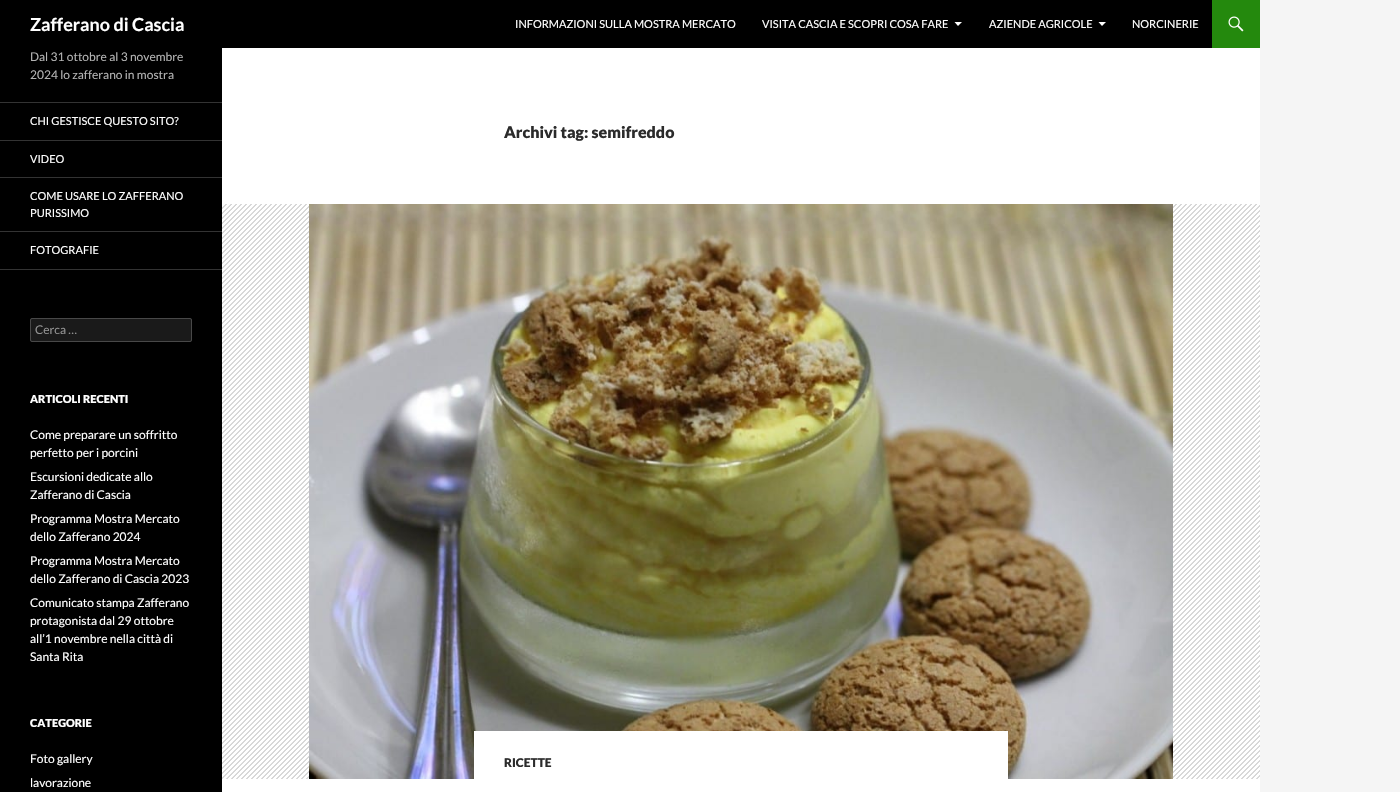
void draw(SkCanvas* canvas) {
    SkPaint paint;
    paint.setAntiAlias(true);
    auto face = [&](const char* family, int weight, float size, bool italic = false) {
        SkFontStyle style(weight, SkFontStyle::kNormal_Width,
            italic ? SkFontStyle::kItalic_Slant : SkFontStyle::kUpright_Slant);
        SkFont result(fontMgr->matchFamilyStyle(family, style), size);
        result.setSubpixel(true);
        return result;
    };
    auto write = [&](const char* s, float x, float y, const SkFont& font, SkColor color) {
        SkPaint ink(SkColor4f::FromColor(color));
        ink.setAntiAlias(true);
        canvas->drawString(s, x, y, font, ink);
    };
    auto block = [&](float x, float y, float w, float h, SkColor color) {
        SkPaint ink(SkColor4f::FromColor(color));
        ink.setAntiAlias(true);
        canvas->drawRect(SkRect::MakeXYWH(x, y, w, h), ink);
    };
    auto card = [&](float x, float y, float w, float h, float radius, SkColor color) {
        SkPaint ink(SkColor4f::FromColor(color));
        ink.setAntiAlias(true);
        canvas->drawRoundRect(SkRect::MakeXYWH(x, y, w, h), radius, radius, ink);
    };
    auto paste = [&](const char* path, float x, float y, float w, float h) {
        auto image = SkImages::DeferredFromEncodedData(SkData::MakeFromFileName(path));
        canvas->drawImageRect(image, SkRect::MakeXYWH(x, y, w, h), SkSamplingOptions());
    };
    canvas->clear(SkColorSetRGB(245, 245, 245));
    block(222, 48, 1038, 744, SK_ColorWHITE);
    block(0, 0, 1212, 48, SK_ColorBLACK);
    auto kFont1 = face("Lato", 700, 18);
    write("Zafferano di Cascia", 30, 31, kFont1, SK_ColorWHITE);
    auto kFont2 = face("Lato", 400, 11);
    write("INFORMAZIONI SULLA MOSTRA MERCATO", 515, 28, kFont2, SK_ColorWHITE);
    write("VISITA CASCIA E SCOPRI COSA FARE", 762, 28, kFont2, SK_ColorWHITE);
    paint.setColor(SK_ColorWHITE);
    canvas->drawPath(SkPathBuilder().moveTo(954.5f, 22).lineTo(958, 26).lineTo(962, 22).close().detach(), paint);
    write("AZIENDE AGRICOLE", 989, 28, kFont2, SK_ColorWHITE);
    canvas->drawPath(SkPathBuilder().moveTo(1098.5f, 22).lineTo(1102, 26).lineTo(1106, 22).close().detach(), paint);
    write("NORCINERIE", 1132, 28, kFont2, SK_ColorWHITE);
    block(1212, 0, 48, 48, SkColorSetRGB(36, 137, 13));
    paste("pic1.png", 1228, 16, 16, 16);
    block(0, 48, 222, 744, SK_ColorBLACK);
    auto kFont3 = face("Lato", 400, 12);
    write("Dal 31 ottobre al 3 novembre", 30, 61, kFont3, SkColorSetRGB(179, 179, 179));
    write("2024 lo zafferano in mostra", 30, 79, kFont3, SkColorSetRGB(179, 179, 179));
    block(0, 269, 222, 1, SkColorSetRGB(51, 51, 51));
    block(0, 102, 222, 1, SkColorSetRGB(51, 51, 51));
    write("CHI GESTISCE QUESTO SITO?", 30, 125, kFont2, SK_ColorWHITE);
    block(0, 140, 222, 1, SkColorSetRGB(51, 51, 51));
    write("VIDEO", 30, 163, kFont2, SK_ColorWHITE);
    block(0, 177, 222, 1, SkColorSetRGB(51, 51, 51));
    write("COME USARE LO ZAFFERANO", 30, 200, kFont2, SK_ColorWHITE);
    write("PURISSIMO", 30, 217, kFont2, SK_ColorWHITE);
    block(0, 231, 222, 1, SkColorSetRGB(51, 51, 51));
    write("FOTOGRAFIE", 30, 254, kFont2, SK_ColorWHITE);
    card(30, 318, 162, 24, 2, SkColorSetRGB(26, 26, 26));
    paint.setStyle(SkPaint::kStroke_Style);
    paint.setStrokeWidth(1);
    paint.setColor(SkColorSetARGB(51, 255, 255, 255));
    canvas->drawRoundRect(SkRect::MakeXYWH(30.5f, 318.5f, 161, 23), 1.5f, 1.5f, paint);
    write("Cerca …", 35, 334, kFont3, SkColorSetRGB(147, 147, 147));
    auto kFont4 = face("Lato", 900, 11);
    write("ARTICOLI RECENTI", 30, 403, kFont4, SK_ColorWHITE);
    write("Come preparare un soffritto", 30, 439, kFont3, SK_ColorWHITE);
    write("perfetto per i porcini", 30, 457, kFont3, SK_ColorWHITE);
    write("Escursioni dedicate allo", 30, 481, kFont3, SK_ColorWHITE);
    write("Zafferano di Cascia", 30, 499, kFont3, SK_ColorWHITE);
    write("Programma Mostra Mercato", 30, 523, kFont3, SK_ColorWHITE);
    write("dello Zafferano 2024", 30, 541, kFont3, SK_ColorWHITE);
    write("Programma Mostra Mercato", 30, 565, kFont3, SK_ColorWHITE);
    write("dello Zafferano di Cascia 2023", 30, 583, kFont3, SK_ColorWHITE);
    write("Comunicato stampa Zafferano", 30, 607, kFont3, SK_ColorWHITE);
    write("protagonista dal 29 ottobre", 30, 625, kFont3, SK_ColorWHITE);
    write("all’1 novembre nella città di", 30, 643, kFont3, SK_ColorWHITE);
    write("Santa Rita", 30, 661, kFont3, SK_ColorWHITE);
    write("CATEGORIE", 30, 727, kFont4, SK_ColorWHITE);
    write("Foto gallery", 30, 763, kFont3, SK_ColorWHITE);
    write("lavorazione", 30, 787, kFont3, SK_ColorWHITE);
    auto kFont5 = face("Lato", 900, 16);
    write("Archivi tag: semifreddo", 504, 138, kFont5, SkColorSetRGB(43, 43, 43));
    block(222, 204, 1038, 575, SkColorSetRGB(178, 178, 178));
    paste("pic2.png", 222, 204, 1038, 575);
    paste("pic3.png", 309, 204, 864, 575);
    block(474, 731, 534, 48, SK_ColorWHITE);
    auto kFont6 = face("Lato", 900, 12);
    write("RICETTE", 504, 767, kFont6, SkColorSetRGB(43, 43, 43));
}
